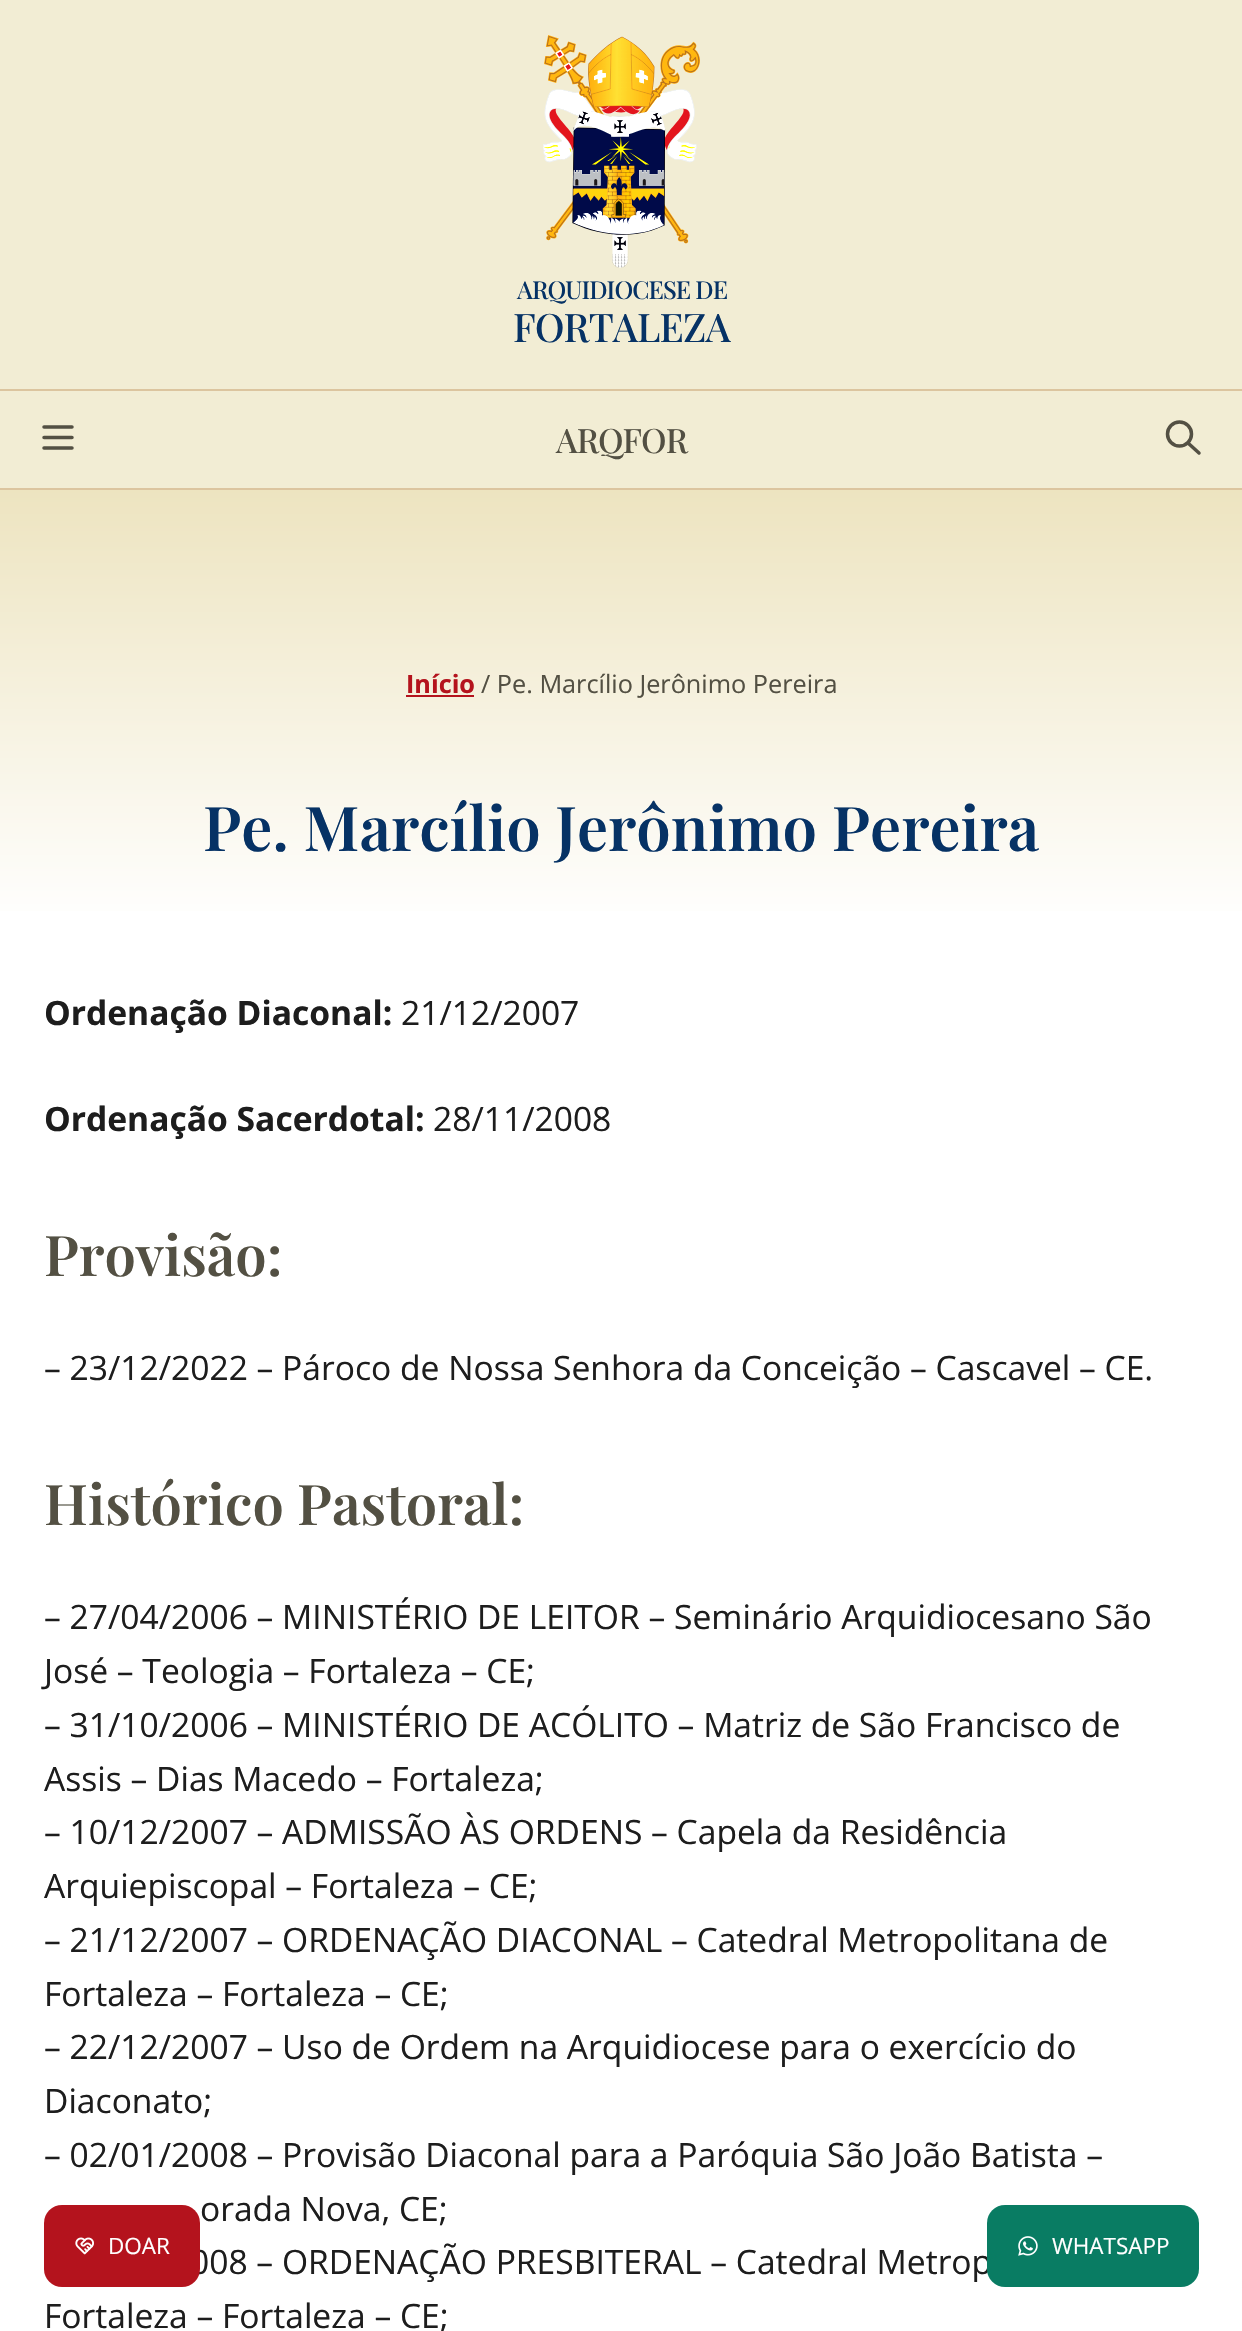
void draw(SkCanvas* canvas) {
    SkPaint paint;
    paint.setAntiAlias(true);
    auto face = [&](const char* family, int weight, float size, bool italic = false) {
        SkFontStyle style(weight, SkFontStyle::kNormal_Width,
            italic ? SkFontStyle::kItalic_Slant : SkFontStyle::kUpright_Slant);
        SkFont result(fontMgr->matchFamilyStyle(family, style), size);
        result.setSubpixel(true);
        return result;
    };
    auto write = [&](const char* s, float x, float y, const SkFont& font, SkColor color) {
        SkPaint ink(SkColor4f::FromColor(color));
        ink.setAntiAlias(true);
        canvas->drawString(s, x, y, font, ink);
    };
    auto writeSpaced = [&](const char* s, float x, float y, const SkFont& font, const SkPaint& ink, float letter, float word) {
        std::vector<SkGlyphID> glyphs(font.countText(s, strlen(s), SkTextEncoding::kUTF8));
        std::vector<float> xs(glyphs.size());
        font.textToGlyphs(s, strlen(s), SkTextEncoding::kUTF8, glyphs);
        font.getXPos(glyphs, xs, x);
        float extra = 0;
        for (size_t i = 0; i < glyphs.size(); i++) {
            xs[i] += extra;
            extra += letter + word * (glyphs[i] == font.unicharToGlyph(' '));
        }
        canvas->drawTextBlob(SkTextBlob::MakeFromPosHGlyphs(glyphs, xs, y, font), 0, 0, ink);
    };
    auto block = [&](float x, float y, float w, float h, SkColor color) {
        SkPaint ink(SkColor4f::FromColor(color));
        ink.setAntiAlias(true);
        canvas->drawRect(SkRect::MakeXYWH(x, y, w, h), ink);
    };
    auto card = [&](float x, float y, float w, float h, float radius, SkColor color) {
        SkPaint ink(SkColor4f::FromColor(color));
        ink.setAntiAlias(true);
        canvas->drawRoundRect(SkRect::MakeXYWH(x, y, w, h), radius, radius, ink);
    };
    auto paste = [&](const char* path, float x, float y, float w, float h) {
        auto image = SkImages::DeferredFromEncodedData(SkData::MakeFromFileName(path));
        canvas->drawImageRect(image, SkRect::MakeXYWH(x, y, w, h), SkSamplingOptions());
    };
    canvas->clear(SK_ColorWHITE);
    block(0, 0, 1242, 389, SkColorSetRGB(242, 237, 212));
    paste("pic1.png", 543, 35, 157, 233);
    auto kFont1 = face("Playfair Display", 500, 24.75f);
    paint.setColor(SkColorSetRGB(6, 50, 101));
    writeSpaced("ARQUIDIOCESE DE", 517, 299, kFont1, paint, -0.9f, 0);
    auto kFont2 = face("Playfair Display", 500, 39.25f);
    writeSpaced("FORTALEZA", 513, 342, kFont2, paint, -0.9f, 0);
    block(0, 391, 1242, 97, SkColorSetRGB(242, 237, 212));
    block(0, 389, 1242, 2, SkColorSetRGB(220, 197, 159));
    block(0, 488, 1242, 2, SkColorSetRGB(220, 197, 159));
    paint.setStyle(SkPaint::kStroke_Style);
    paint.setStrokeWidth(3.5f);
    paint.setStrokeCap(SkPaint::kRound_Cap);
    paint.setStrokeJoin(SkPaint::kRound_Join);
    paint.setColor(SkColorSetRGB(83, 80, 67));
    canvas->drawPath(SkPathBuilder().moveTo(44, 427).lineTo(72, 427).moveTo(44, 437.5f).lineTo(72, 437.5f).moveTo(44, 448).lineTo(72, 448).detach(), paint);
    auto kFont3 = face("Playfair Display", 500, 33.6f);
    paint.setStyle(SkPaint::kFill_Style);
    writeSpaced("ARQFOR", 556, 453, kFont3, paint, -0.9f, 0);
    paint.setStyle(SkPaint::kStroke_Style);
    paint.setStrokeCap(SkPaint::kButt_Cap);
    paint.setStrokeJoin(SkPaint::kMiter_Join);
    canvas->drawCircle(1179.5f, 434, 12, paint);
    paint.setStrokeCap(SkPaint::kRound_Cap);
    paint.setStrokeJoin(SkPaint::kRound_Join);
    canvas->drawPath(SkPathBuilder().moveTo(1199, 453).lineTo(1188, 443).detach(), paint);
    paint.setStyle(SkPaint::kFill_Style);
    {
        const SkColor colors[] = {SkColorSetRGB(237, 228, 192), SK_ColorWHITE};
        const float stops[] = {0, 1};
        const SkPoint ends[] = {{621, 490}, {621, 928}};
        paint.setShader(SkGradientShader::MakeLinear(ends, colors, stops, 2, SkTileMode::kClamp));
        paint.setAlpha(255);
    }
    canvas->drawRect(SkRect::MakeXYWH(0, 490, 1242, 421), paint);
    auto kFont4 = face("Open Sans", 700, 25.25f);
    write("Início", 406, 693, kFont4, SkColorSetRGB(180, 19, 29));
    block(406, 695, 68, 2, SkColorSetRGB(180, 19, 29));
    auto kFont5 = face("Open Sans", 400, 25.25f);
    write("/ Pe. Marcílio Jerônimo Pereira", 481, 693, kFont5, SkColorSetRGB(83, 80, 67));
    auto kFont6 = face("Playfair Display", 600, 61.6f);
    write("Pe. Marcílio Jerônimo Pereira", 203, 851, kFont6, SkColorSetRGB(6, 50, 101));
    auto kFont7 = face("Open Sans", 700, 33.6f);
    write("Ordenação Diaconal:", 44, 1025, kFont7, SkColorSetRGB(29, 29, 29));
    auto kFont8 = face("Open Sans", 400, 33.6f);
    write("21/12/2007", 401, 1025, kFont8, SkColorSetRGB(29, 29, 29));
    write("Ordenação Sacerdotal:", 44, 1131, kFont7, SkColorSetRGB(29, 29, 29));
    write("28/11/2008", 433, 1131, kFont8, SkColorSetRGB(29, 29, 29));
    auto kFont9 = face("Playfair Display", 600, 56);
    write("Provisão:", 44, 1276, kFont9, SkColorSetRGB(83, 80, 67));
    write("– 23/12/2022 – Pároco de Nossa Senhora da Conceição – Cascavel – CE.", 44, 1380, kFont8, SkColorSetRGB(29, 29, 29));
    write("Histórico Pastoral:", 44, 1525, kFont9, SkColorSetRGB(83, 80, 67));
    write("– 27/04/2006 – MINISTÉRIO DE LEITOR – Seminário Arquidiocesano São", 44, 1629, kFont8, SkColorSetRGB(29, 29, 29));
    write("José – Teologia – Fortaleza – CE;", 44, 1683, kFont8, SkColorSetRGB(29, 29, 29));
    write("– 31/10/2006 – MINISTÉRIO DE ACÓLITO – Matriz de São Francisco de", 44, 1737, kFont8, SkColorSetRGB(29, 29, 29));
    write("Assis – Dias Macedo – Fortaleza;", 44, 1791, kFont8, SkColorSetRGB(29, 29, 29));
    write("– 10/12/2007 – ADMISSÃO ÀS ORDENS – Capela da Residência", 44, 1844, kFont8, SkColorSetRGB(29, 29, 29));
    write("Arquiepiscopal – Fortaleza – CE;", 44, 1898, kFont8, SkColorSetRGB(29, 29, 29));
    write("– 21/12/2007 – ORDENAÇÃO DIACONAL – Catedral Metropolitana de", 44, 1952, kFont8, SkColorSetRGB(29, 29, 29));
    write("Fortaleza – Fortaleza – CE;", 44, 2006, kFont8, SkColorSetRGB(29, 29, 29));
    write("– 22/12/2007 – Uso de Ordem na Arquidiocese para o exercício do", 44, 2059, kFont8, SkColorSetRGB(29, 29, 29));
    write("Diaconato;", 44, 2113, kFont8, SkColorSetRGB(29, 29, 29));
    write("– 02/01/2008 – Provisão Diaconal para a Paróquia São João Batista –", 44, 2167, kFont8, SkColorSetRGB(29, 29, 29));
    write("orada Nova, CE;", 200, 2221, kFont8, SkColorSetRGB(29, 29, 29));
    write("008 – ORDENAÇÃO PRESBITERAL – Catedral Metrop", 190, 2274, kFont8, SkColorSetRGB(29, 29, 29));
    write("Fortaleza – Fortaleza – CE;", 44, 2328, kFont8, SkColorSetRGB(29, 29, 29));
    card(44, 2205, 156, 82, 18, SkColorSetRGB(180, 19, 29));
    paste("pic2.png", 75, 2237, 19, 18);
    auto kFont10 = face("Open Sans", 400, 22.5f);
    write("DOAR", 108, 2254, kFont10, SK_ColorWHITE);
    card(987, 2205, 212, 82, 18, SkColorSetRGB(9, 124, 99));
    paste("pic3.png", 1018, 2236, 20, 20);
    write("WHATSAPP", 1052, 2254, kFont10, SK_ColorWHITE);
}
